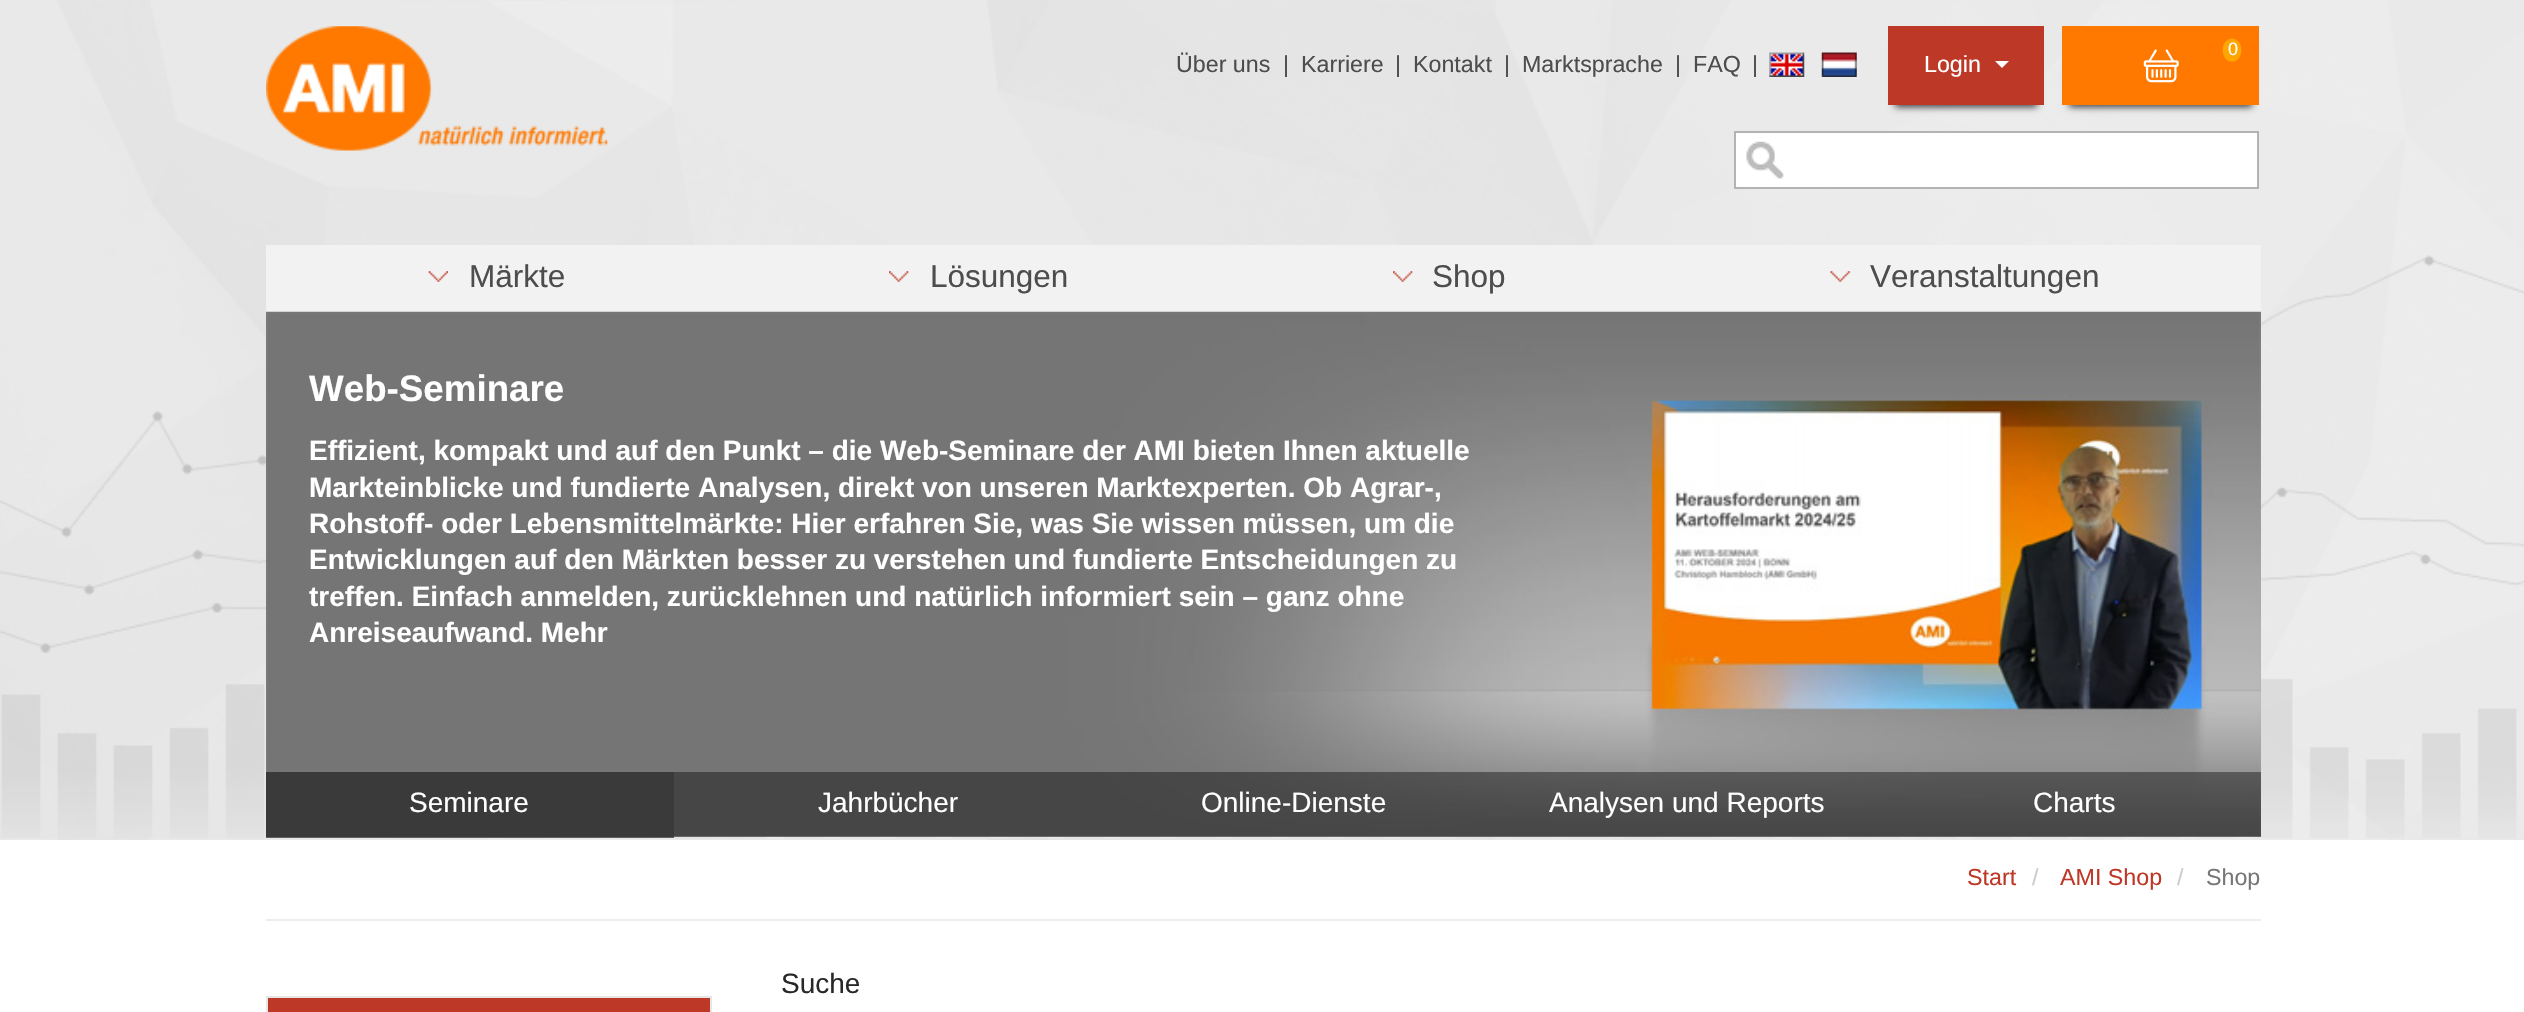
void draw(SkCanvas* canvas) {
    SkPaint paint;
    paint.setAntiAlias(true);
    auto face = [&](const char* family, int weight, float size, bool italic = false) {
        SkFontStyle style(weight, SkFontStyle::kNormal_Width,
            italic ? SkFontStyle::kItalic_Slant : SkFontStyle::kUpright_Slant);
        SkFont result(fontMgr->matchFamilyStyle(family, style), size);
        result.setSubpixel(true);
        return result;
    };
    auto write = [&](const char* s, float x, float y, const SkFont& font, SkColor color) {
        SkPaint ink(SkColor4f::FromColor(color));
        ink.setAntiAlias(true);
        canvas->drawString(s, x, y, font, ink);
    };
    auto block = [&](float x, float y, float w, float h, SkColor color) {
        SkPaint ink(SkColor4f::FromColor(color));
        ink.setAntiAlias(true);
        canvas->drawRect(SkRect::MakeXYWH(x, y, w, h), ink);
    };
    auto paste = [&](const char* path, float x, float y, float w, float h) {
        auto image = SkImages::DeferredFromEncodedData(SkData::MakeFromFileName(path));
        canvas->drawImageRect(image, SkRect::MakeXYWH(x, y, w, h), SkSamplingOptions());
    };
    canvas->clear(SK_ColorWHITE);
    paste("pic1.png", 0, 0, 2524, 840);
    paste("pic2.png", 266, 26, 342, 125);
    paint.setColor(SkColorSetARGB(191, 0, 0, 0));
    paint.setMaskFilter(SkMaskFilter::MakeBlur(kNormal_SkBlurStyle, 3.5f));
    canvas->drawRect(SkRect::MakeXYWH(2069, 42, 183, 65), paint);
    paint.setMaskFilter(nullptr);
    block(2062, 26, 197, 79, SkColorSetRGB(255, 121, 0));
    paste("pic3.png", 2143, 49, 36, 34);
    paint.setColor(SkColorSetRGB(255, 165, 0));
    canvas->drawOval(SkRect::MakeXYWH(2222.5f, 38.5f, 19, 23), paint);
    auto kFont1 = face("Liberation Sans", 400, 18);
    write("0", 2228, 55, kFont1, SK_ColorWHITE);
    auto kFont2 = face("Liberation Sans", 400, 23.25f);
    write("Über uns", 1176, 72, kFont2, SkColorSetRGB(77, 77, 77));
    write("|", 1283, 72, kFont2, SkColorSetRGB(77, 77, 77));
    write("Karriere", 1301, 72, kFont2, SkColorSetRGB(77, 77, 77));
    write("|", 1395, 72, kFont2, SkColorSetRGB(77, 77, 77));
    write("Kontakt", 1413, 72, kFont2, SkColorSetRGB(77, 77, 77));
    write("|", 1504, 72, kFont2, SkColorSetRGB(77, 77, 77));
    write("Marktsprache", 1522, 72, kFont2, SkColorSetRGB(77, 77, 77));
    write("|", 1675, 72, kFont2, SkColorSetRGB(77, 77, 77));
    write("FAQ", 1693, 72, kFont2, SkColorSetRGB(77, 77, 77));
    write("|", 1752, 72, kFont2, SkColorSetRGB(77, 77, 77));
    paste("pic4.png", 1769, 52, 36, 25);
    paste("pic5.png", 1821, 52, 36, 25);
    paint.setColor(SkColorSetARGB(191, 0, 0, 0));
    paint.setMaskFilter(SkMaskFilter::MakeBlur(kNormal_SkBlurStyle, 3.5f));
    canvas->drawRect(SkRect::MakeXYWH(1895, 42, 142, 65), paint);
    paint.setMaskFilter(nullptr);
    block(1888, 26, 156, 79, SkColorSetRGB(189, 56, 39));
    write("Login", 1924, 72, kFont2, SK_ColorWHITE);
    paint.setColor(SK_ColorWHITE);
    canvas->drawPath(SkPathBuilder().moveTo(1995, 61).lineTo(2009, 61).lineTo(2002, 68).close().detach(), paint);
    block(1736, 133, 521, 54, SK_ColorWHITE);
    paste("pic6.png", 1746, 141, 38, 38);
    paint.setStyle(SkPaint::kStroke_Style);
    paint.setStrokeWidth(2);
    paint.setColor(SkColorSetRGB(179, 179, 179));
    canvas->drawRect(SkRect::MakeXYWH(1735, 132, 523, 56), paint);
    block(266, 245, 1995, 67, SkColorSetRGB(242, 242, 242));
    paste("pic7.png", 428, 271, 20, 11);
    auto kFont3 = face("Liberation Sans", 400, 31.5f);
    write("Märkte", 469, 287, kFont3, SkColorSetRGB(77, 77, 77));
    paste("pic8.png", 889, 271, 20, 11);
    write("Lösungen", 930, 287, kFont3, SkColorSetRGB(77, 77, 77));
    paste("pic8.png", 1393, 271, 20, 11);
    write("Shop", 1432, 287, kFont3, SkColorSetRGB(77, 77, 77));
    paste("pic9.png", 1830, 271, 20, 11);
    write("Veranstaltungen", 1870, 287, kFont3, SkColorSetRGB(77, 77, 77));
    paste("pic10.png", 266, 311, 1995, 526);
    auto kFont4 = face("Liberation Sans", 700, 36.75f);
    write("Web-Seminare", 309, 401, kFont4, SK_ColorWHITE);
    auto kFont5 = face("Liberation Sans", 700, 28);
    write("Effizient, kompakt und auf den Punkt – die Web-Seminare der AMI bieten Ihnen aktuelle", 309, 460, kFont5, SK_ColorWHITE);
    write("Markteinblicke und fundierte Analysen, direkt von unseren Marktexperten. Ob Agrar-,", 309, 497, kFont5, SK_ColorWHITE);
    write("Rohstoff- oder Lebensmittelmärkte: Hier erfahren Sie, was Sie wissen müssen, um die", 309, 533, kFont5, SK_ColorWHITE);
    write("Entwicklungen auf den Märkten besser zu verstehen und fundierte Entscheidungen zu", 309, 569, kFont5, SK_ColorWHITE);
    write("treffen. Einfach anmelden, zurücklehnen und natürlich informiert sein – ganz ohne", 309, 606, kFont5, SK_ColorWHITE);
    write("Anreiseaufwand. Mehr", 309, 642, kFont5, SK_ColorWHITE);
    block(266, 837, 408, 1, SkColorSetRGB(97, 97, 97));
    block(266, 772, 408, 65, SkColorSetRGB(58, 58, 58));
    auto kFont6 = face("Liberation Sans", 400, 28);
    write("Seminare", 409, 812, kFont6, SK_ColorWHITE);
    block(674, 772, 429, 65, SkColorSetARGB(102, 0, 0, 0));
    write("Jahrbücher", 818, 812, kFont6, SK_ColorWHITE);
    block(1103, 772, 383, 65, SkColorSetARGB(102, 0, 0, 0));
    write("Online-Dienste", 1201, 812, kFont6, SK_ColorWHITE);
    block(1486, 772, 402, 65, SkColorSetARGB(102, 0, 0, 0));
    write("Analysen und Reports", 1549, 812, kFont6, SK_ColorWHITE);
    block(1888, 772, 373, 65, SkColorSetARGB(102, 0, 0, 0));
    write("Charts", 2033, 812, kFont6, SK_ColorWHITE);
    block(266, 919, 1995, 2, SkColorSetRGB(238, 238, 238));
    write("Start", 1967, 885, kFont2, SkColorSetRGB(189, 56, 39));
    write("/", 2032, 885, kFont2, SkColorSetRGB(204, 204, 204));
    write("AMI Shop", 2060, 885, kFont2, SkColorSetRGB(189, 56, 39));
    write("/", 2177, 885, kFont2, SkColorSetRGB(204, 204, 204));
    write("Shop", 2206, 885, kFont2, SkColorSetRGB(119, 119, 119));
    write("Suche", 781, 993, kFont6, SkColorSetRGB(40, 40, 40));
    paint.setStyle(SkPaint::kFill_Style);
    paint.setColor(SkColorSetRGB(189, 56, 39));
    canvas->drawRect(SkRect::MakeXYWH(267, 997, 444, 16), paint);
    paint.setStyle(SkPaint::kStroke_Style);
    paint.setColor(SkColorSetRGB(230, 230, 230));
    canvas->drawRect(SkRect::MakeXYWH(267, 997, 444, 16), paint);
}
